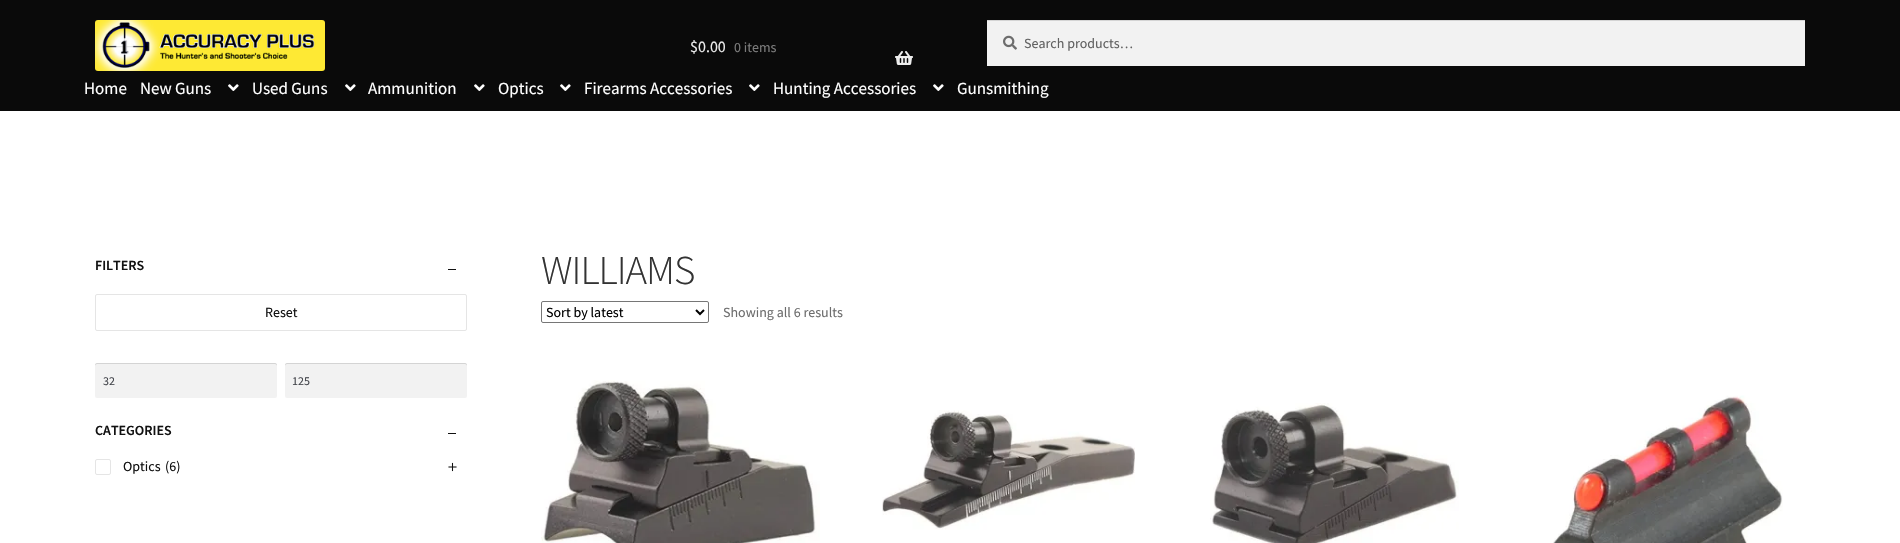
void draw(SkCanvas* canvas) {
    SkPaint paint;
    paint.setAntiAlias(true);
    auto face = [&](const char* family, int weight, float size, bool italic = false) {
        SkFontStyle style(weight, SkFontStyle::kNormal_Width,
            italic ? SkFontStyle::kItalic_Slant : SkFontStyle::kUpright_Slant);
        SkFont result(fontMgr->matchFamilyStyle(family, style), size);
        result.setSubpixel(true);
        return result;
    };
    auto write = [&](const char* s, float x, float y, const SkFont& font, SkColor color) {
        SkPaint ink(SkColor4f::FromColor(color));
        ink.setAntiAlias(true);
        canvas->drawString(s, x, y, font, ink);
    };
    auto writeSpaced = [&](const char* s, float x, float y, const SkFont& font, const SkPaint& ink, float letter, float word) {
        std::vector<SkGlyphID> glyphs(font.countText(s, strlen(s), SkTextEncoding::kUTF8));
        std::vector<float> xs(glyphs.size());
        font.textToGlyphs(s, strlen(s), SkTextEncoding::kUTF8, glyphs);
        font.getXPos(glyphs, xs, x);
        float extra = 0;
        for (size_t i = 0; i < glyphs.size(); i++) {
            xs[i] += extra;
            extra += letter + word * (glyphs[i] == font.unicharToGlyph(' '));
        }
        canvas->drawTextBlob(SkTextBlob::MakeFromPosHGlyphs(glyphs, xs, y, font), 0, 0, ink);
    };
    auto block = [&](float x, float y, float w, float h, SkColor color) {
        SkPaint ink(SkColor4f::FromColor(color));
        ink.setAntiAlias(true);
        canvas->drawRect(SkRect::MakeXYWH(x, y, w, h), ink);
    };
    auto card = [&](float x, float y, float w, float h, float radius, SkColor color) {
        SkPaint ink(SkColor4f::FromColor(color));
        ink.setAntiAlias(true);
        canvas->drawRoundRect(SkRect::MakeXYWH(x, y, w, h), radius, radius, ink);
    };
    auto paste = [&](const char* path, float x, float y, float w, float h) {
        auto image = SkImages::DeferredFromEncodedData(SkData::MakeFromFileName(path));
        canvas->drawImageRect(image, SkRect::MakeXYWH(x, y, w, h), SkSamplingOptions());
    };
    canvas->clear(SK_ColorWHITE);
    block(0, 0, 1900, 111, SkColorSetRGB(10, 10, 10));
    paste("pic1.png", 95, 20, 230, 51);
    auto kFont1 = face("Source Sans Pro", 400, 16);
    write("$0.00", 690, 52, kFont1, SkColorSetRGB(237, 237, 237));
    auto kFont2 = face("Source Sans Pro", 400, 14);
    write("0 items", 734, 52, kFont2, SkColorSetRGB(124, 124, 124));
    paste("pic2.png", 895, 51, 18, 14);
    block(987, 21, 818, 45, SkColorSetRGB(242, 242, 242));
    paste("pic3.png", 1003, 35, 14, 15);
    block(987, 20, 818, 1, SkColorSetRGB(212, 212, 212));
    write("Search products…", 1024, 48, kFont2, SkColorSetRGB(97, 97, 97));
    auto kFont3 = face("Source Sans Pro", 400, 17);
    write("Home", 84, 94, kFont3, SK_ColorWHITE);
    write("New Guns", 140, 94, kFont3, SK_ColorWHITE);
    paste("pic4.png", 228, 84, 11, 7);
    write("Used Guns", 252, 94, kFont3, SK_ColorWHITE);
    paste("pic4.png", 345, 84, 11, 7);
    write("Ammunition", 368, 94, kFont3, SK_ColorWHITE);
    paste("pic4.png", 474, 84, 11, 7);
    write("Optics", 498, 94, kFont3, SK_ColorWHITE);
    paste("pic4.png", 560, 84, 11, 7);
    write("Firearms Accessories", 584, 94, kFont3, SK_ColorWHITE);
    paste("pic4.png", 749, 84, 11, 7);
    write("Hunting Accessories", 773, 94, kFont3, SK_ColorWHITE);
    paste("pic4.png", 933, 84, 11, 7);
    write("Gunsmithing", 957, 94, kFont3, SK_ColorWHITE);
    auto kFont4 = face("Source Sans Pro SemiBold", 600, 14);
    write("FILTERS", 95, 270, kFont4, SkColorSetRGB(17, 17, 17));
    block(448, 269, 8, 1, SkColorSetRGB(17, 17, 17));
    paint.setStyle(SkPaint::kStroke_Style);
    paint.setStrokeWidth(1);
    paint.setColor(SkColorSetRGB(229, 229, 229));
    canvas->drawRoundRect(SkRect::MakeXYWH(95.5f, 294.5f, 371, 36), 1.5f, 1.5f, paint);
    write("Reset", 265, 317, kFont2, SkColorSetRGB(17, 17, 17));
    card(95, 363, 182, 35, 2, SkColorSetRGB(242, 242, 242));
    paint.setStyle(SkPaint::kFill_Style);
    paint.setColor(SkColorSetRGB(212, 212, 212));
    canvas->drawPath(SkPathBuilder().moveTo(97, 364).lineTo(275, 364).cubicTo(276, 364, 277, 365, 277, 366).lineTo(277, 365).cubicTo(277, 364, 276, 363, 275, 363).lineTo(97, 363).cubicTo(96, 363, 95, 364, 95, 365).lineTo(95, 366).cubicTo(95, 365, 96, 364, 97, 364).close().detach(), paint);
    auto kFont5 = face("Source Sans Pro", 400, 12);
    write("32", 103, 385, kFont5, SkColorSetRGB(67, 69, 75));
    card(285, 363, 182, 35, 2, SkColorSetRGB(242, 242, 242));
    canvas->drawPath(SkPathBuilder().moveTo(287, 364).lineTo(465, 364).cubicTo(466, 364, 467, 365, 467, 366).lineTo(467, 365).cubicTo(467, 364, 466, 363, 465, 363).lineTo(287, 363).cubicTo(286, 363, 285, 364, 285, 365).lineTo(285, 366).cubicTo(285, 365, 286, 364, 287, 364).close().detach(), paint);
    write("125", 292, 385, kFont5, SkColorSetRGB(67, 69, 75));
    write("CATEGORIES", 95, 435, kFont4, SkColorSetRGB(17, 17, 17));
    block(448, 433, 8, 1, SkColorSetRGB(17, 17, 17));
    paint.setStyle(SkPaint::kStroke_Style);
    paint.setColor(SkColorSetRGB(229, 229, 229));
    canvas->drawRoundRect(SkRect::MakeXYWH(95.5f, 459.5f, 15, 15), 1.5f, 1.5f, paint);
    write("Optics", 123, 471, kFont2, SkColorSetRGB(17, 17, 17));
    write("(6)", 165, 471, kFont2, SkColorSetRGB(17, 17, 17));
    paste("pic5.png", 448, 462, 9, 10);
    auto kFont6 = face("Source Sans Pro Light", 300, 41);
    paint.setStyle(SkPaint::kFill_Style);
    paint.setColor(SkColorSetRGB(51, 51, 51));
    writeSpaced("WILLIAMS", 541, 284, kFont6, paint, -1, 0);
    paint.setStyle(SkPaint::kStroke_Style);
    paint.setColor(SkColorSetRGB(118, 118, 118));
    canvas->drawRoundRect(SkRect::MakeXYWH(541.5f, 301.5f, 167, 21), 1.5f, 1.5f, paint);
    paint.setStrokeWidth(2);
    paint.setColor(SK_ColorBLACK);
    canvas->drawPath(SkPathBuilder().moveTo(696, 310).lineTo(700, 314).lineTo(704, 310).detach(), paint);
    write("Sort by latest", 546, 317, kFont2, SK_ColorBLACK);
    write("Showing all 6 results", 723, 317, kFont2, SkColorSetRGB(109, 109, 109));
    paste("pic6.png", 541, 380, 279, 163);
    paste("pic7.png", 882, 410, 253, 120);
    paste("pic8.png", 1210, 403, 249, 140);
    paste("pic9.png", 1553, 395, 230, 148);
}
